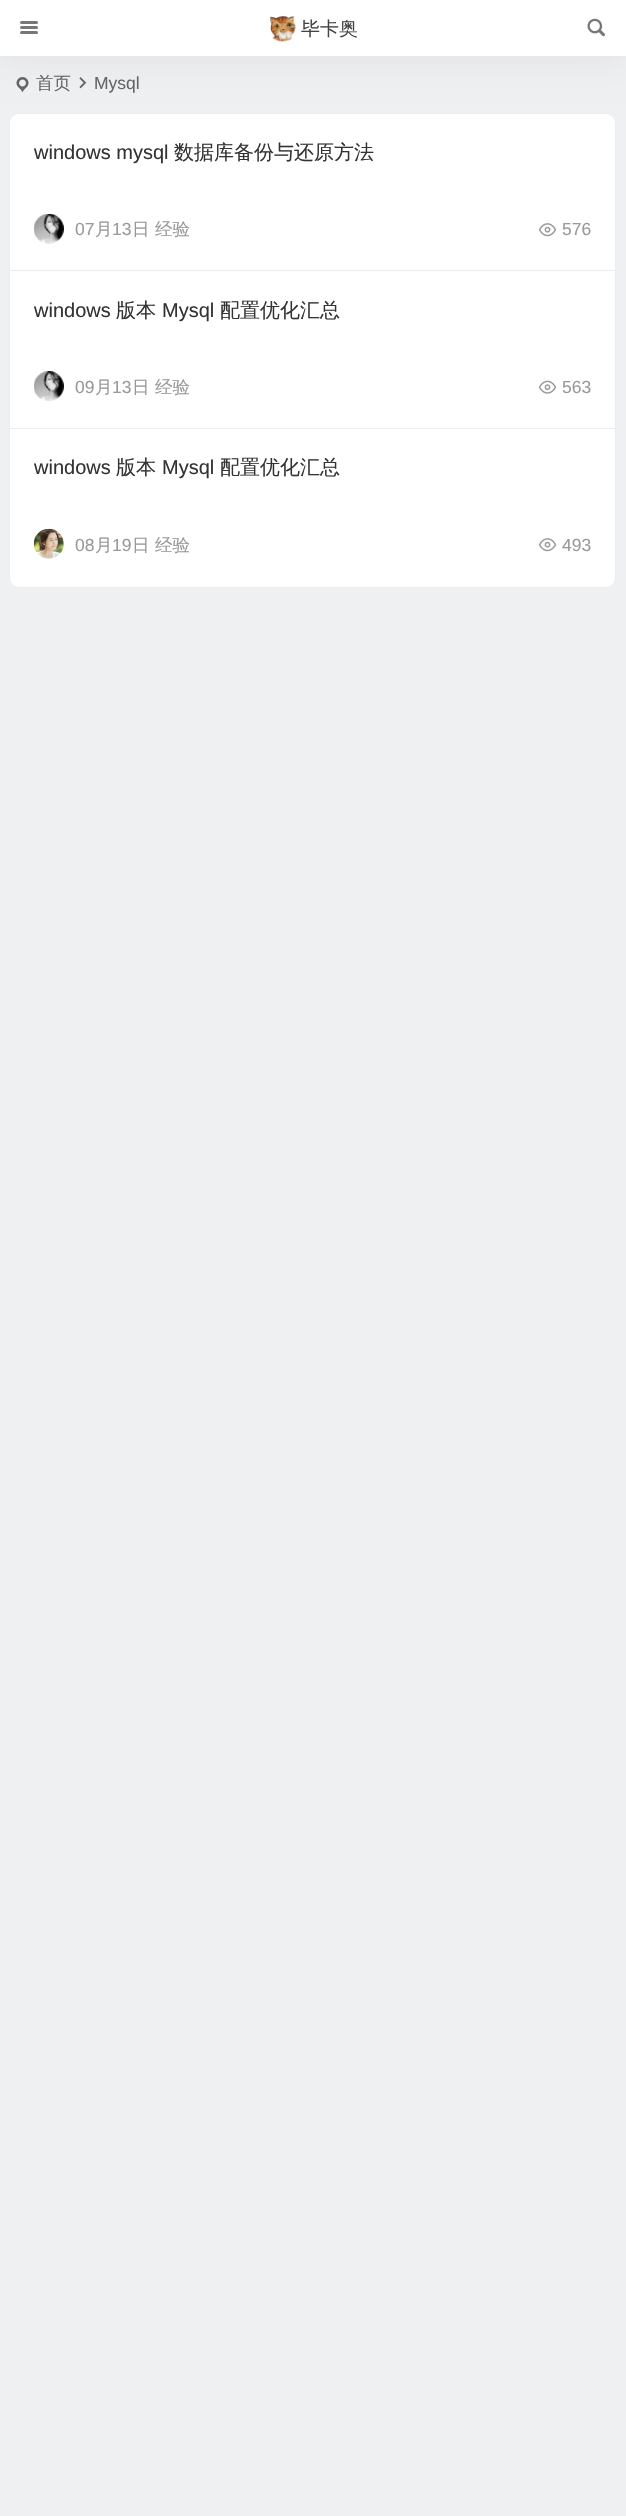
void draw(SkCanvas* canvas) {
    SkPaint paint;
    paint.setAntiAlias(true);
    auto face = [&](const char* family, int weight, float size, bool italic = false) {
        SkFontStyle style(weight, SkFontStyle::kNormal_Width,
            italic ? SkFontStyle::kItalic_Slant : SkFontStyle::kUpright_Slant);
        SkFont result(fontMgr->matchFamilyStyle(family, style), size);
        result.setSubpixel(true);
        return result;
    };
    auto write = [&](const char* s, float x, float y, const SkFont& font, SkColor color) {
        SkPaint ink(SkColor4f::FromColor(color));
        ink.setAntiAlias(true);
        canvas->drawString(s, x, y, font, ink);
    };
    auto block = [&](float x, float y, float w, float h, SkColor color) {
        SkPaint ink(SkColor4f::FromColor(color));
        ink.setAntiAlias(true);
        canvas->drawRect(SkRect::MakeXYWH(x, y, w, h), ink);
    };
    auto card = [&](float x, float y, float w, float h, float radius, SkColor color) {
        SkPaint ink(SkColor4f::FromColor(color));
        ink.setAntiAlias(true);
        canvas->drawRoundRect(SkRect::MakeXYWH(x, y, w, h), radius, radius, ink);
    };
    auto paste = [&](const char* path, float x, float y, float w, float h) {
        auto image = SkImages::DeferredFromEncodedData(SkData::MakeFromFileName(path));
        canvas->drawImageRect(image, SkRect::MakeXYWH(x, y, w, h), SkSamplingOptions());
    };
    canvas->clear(SkColorSetRGB(239, 240, 242));
    paste("pic3.png", 16, 77, 13, 16);
    paste("pic4.png", 79, 77, 8, 12);
    paint.setColor(SK_ColorWHITE);
    canvas->drawPath(SkPathBuilder().moveTo(19, 113).lineTo(606, 113).cubicTo(611.5f, 113, 616, 117.5f, 616, 123).lineTo(616, 271).lineTo(9, 271).lineTo(9, 123).cubicTo(9, 117.5f, 13.5f, 113, 19, 113).close().detach(), paint);
    paint.setStyle(SkPaint::kStroke_Style);
    paint.setStrokeWidth(1);
    paint.setColor(SkColorSetARGB(18, 0, 0, 0));
    canvas->drawPath(SkPathBuilder().moveTo(19, 113.5f).lineTo(606, 113.5f).cubicTo(611, 113.5f, 615.5f, 118, 615.5f, 123).lineTo(615.5f, 270.5f).lineTo(9.5f, 270.5f).lineTo(9.5f, 123).cubicTo(9.5f, 118, 14, 113.5f, 19, 113.5f).close().detach(), paint);
    paint.setStyle(SkPaint::kFill_Style);
    paint.setColor(SkColorSetARGB(15, 0, 0, 0));
    paint.setMaskFilter(SkMaskFilter::MakeBlur(kNormal_SkBlurStyle, 19));
    canvas->drawRect(SkRect::MakeXYWH(0, 4, 626, 56), paint);
    paint.setMaskFilter(nullptr);
    block(0, 0, 626, 56, SK_ColorWHITE);
    card(20, 26, 18, 3, 1.5f, SkColorSetRGB(119, 119, 119));
    card(20, 21, 18, 3, 1.5f, SkColorSetRGB(119, 119, 119));
    card(20, 31, 18, 3, 1.5f, SkColorSetRGB(119, 119, 119));
    paste("pic1.png", 270, 16, 26, 26);
    auto kFont1 = face("WenQuanYi Zen Hei", 500, 19);
    write("毕卡奥", 301, 35, kFont1, SkColorSetRGB(68, 68, 68));
    paste("pic2.png", 587, 18, 18, 19);
    auto kFont2 = face("WenQuanYi Zen Hei", 500, 17.5f);
    write("首页", 36, 89, kFont2, SkColorSetRGB(102, 102, 102));
    auto kFont3 = face("Liberation Sans", 400, 17.5f);
    write("Mysql", 94, 89, kFont3, SkColorSetRGB(102, 102, 102));
    auto kFont4 = face("Liberation Sans", 400, 20);
    write("windows mysql", 34, 159, kFont4, SkColorSetRGB(51, 51, 51));
    auto kFont5 = face("WenQuanYi Zen Hei", 500, 20);
    write("数据库备份与还原方法", 174, 159, kFont5, SkColorSetRGB(51, 51, 51));
    paste("pic5.png", 34, 214, 30, 30);
    write("07", 75, 235, kFont3, SkColorSetRGB(153, 153, 153));
    write("月", 95, 235, kFont2, SkColorSetRGB(153, 153, 153));
    write("13", 112, 235, kFont3, SkColorSetRGB(153, 153, 153));
    write("日", 132, 235, kFont2, SkColorSetRGB(153, 153, 153));
    write("经验", 155, 235, kFont2, SkColorSetRGB(153, 153, 153));
    paste("pic6.png", 538, 223, 19, 14);
    write("576", 562, 235, kFont3, SkColorSetRGB(153, 153, 153));
    paint.setColor(SK_ColorWHITE);
    canvas->drawRect(SkRect::MakeXYWH(9.5f, 270.5f, 606, 158), paint);
    paint.setStyle(SkPaint::kStroke_Style);
    paint.setColor(SkColorSetRGB(236, 236, 236));
    canvas->drawRect(SkRect::MakeXYWH(9.5f, 270.5f, 606, 158), paint);
    write("windows", 34, 317, kFont4, SkColorSetRGB(51, 51, 51));
    write("版本", 116, 317, kFont5, SkColorSetRGB(51, 51, 51));
    write("Mysql", 162, 317, kFont4, SkColorSetRGB(51, 51, 51));
    write("配置优化汇总", 220, 317, kFont5, SkColorSetRGB(51, 51, 51));
    paste("pic7.png", 34, 371, 30, 30);
    write("09", 75, 393, kFont3, SkColorSetRGB(153, 153, 153));
    write("月", 95, 393, kFont2, SkColorSetRGB(153, 153, 153));
    write("13", 112, 393, kFont3, SkColorSetRGB(153, 153, 153));
    write("日", 132, 393, kFont2, SkColorSetRGB(153, 153, 153));
    write("经验", 155, 393, kFont2, SkColorSetRGB(153, 153, 153));
    paste("pic8.png", 538, 380, 19, 14);
    write("563", 562, 393, kFont3, SkColorSetRGB(153, 153, 153));
    paint.setStyle(SkPaint::kFill_Style);
    paint.setColor(SK_ColorWHITE);
    canvas->drawPath(SkPathBuilder().moveTo(9, 428).lineTo(616, 428).lineTo(616, 578).cubicTo(616, 583.5f, 611.5f, 588, 606, 588).lineTo(19, 588).cubicTo(13.5f, 588, 9, 583.5f, 9, 578).close().detach(), paint);
    paint.setStyle(SkPaint::kStroke_Style);
    paint.setColor(SkColorSetARGB(18, 0, 0, 0));
    canvas->drawPath(SkPathBuilder().moveTo(9.5f, 428.5f).lineTo(615.5f, 428.5f).lineTo(615.5f, 578).cubicTo(615.5f, 583, 611, 587.5f, 606, 587.5f).lineTo(19, 587.5f).cubicTo(14, 587.5f, 9.5f, 583, 9.5f, 578).close().detach(), paint);
    write("windows", 34, 474, kFont4, SkColorSetRGB(51, 51, 51));
    write("版本", 116, 474, kFont5, SkColorSetRGB(51, 51, 51));
    write("Mysql", 162, 474, kFont4, SkColorSetRGB(51, 51, 51));
    write("配置优化汇总", 220, 474, kFont5, SkColorSetRGB(51, 51, 51));
    paste("pic9.png", 33, 528, 31, 31);
    write("08", 75, 551, kFont3, SkColorSetRGB(153, 153, 153));
    write("月", 95, 551, kFont2, SkColorSetRGB(153, 153, 153));
    write("19", 112, 551, kFont3, SkColorSetRGB(153, 153, 153));
    write("日", 132, 551, kFont2, SkColorSetRGB(153, 153, 153));
    write("经验", 155, 551, kFont2, SkColorSetRGB(153, 153, 153));
    paste("pic6.png", 538, 538, 19, 14);
    write("493", 562, 551, kFont3, SkColorSetRGB(153, 153, 153));
}
